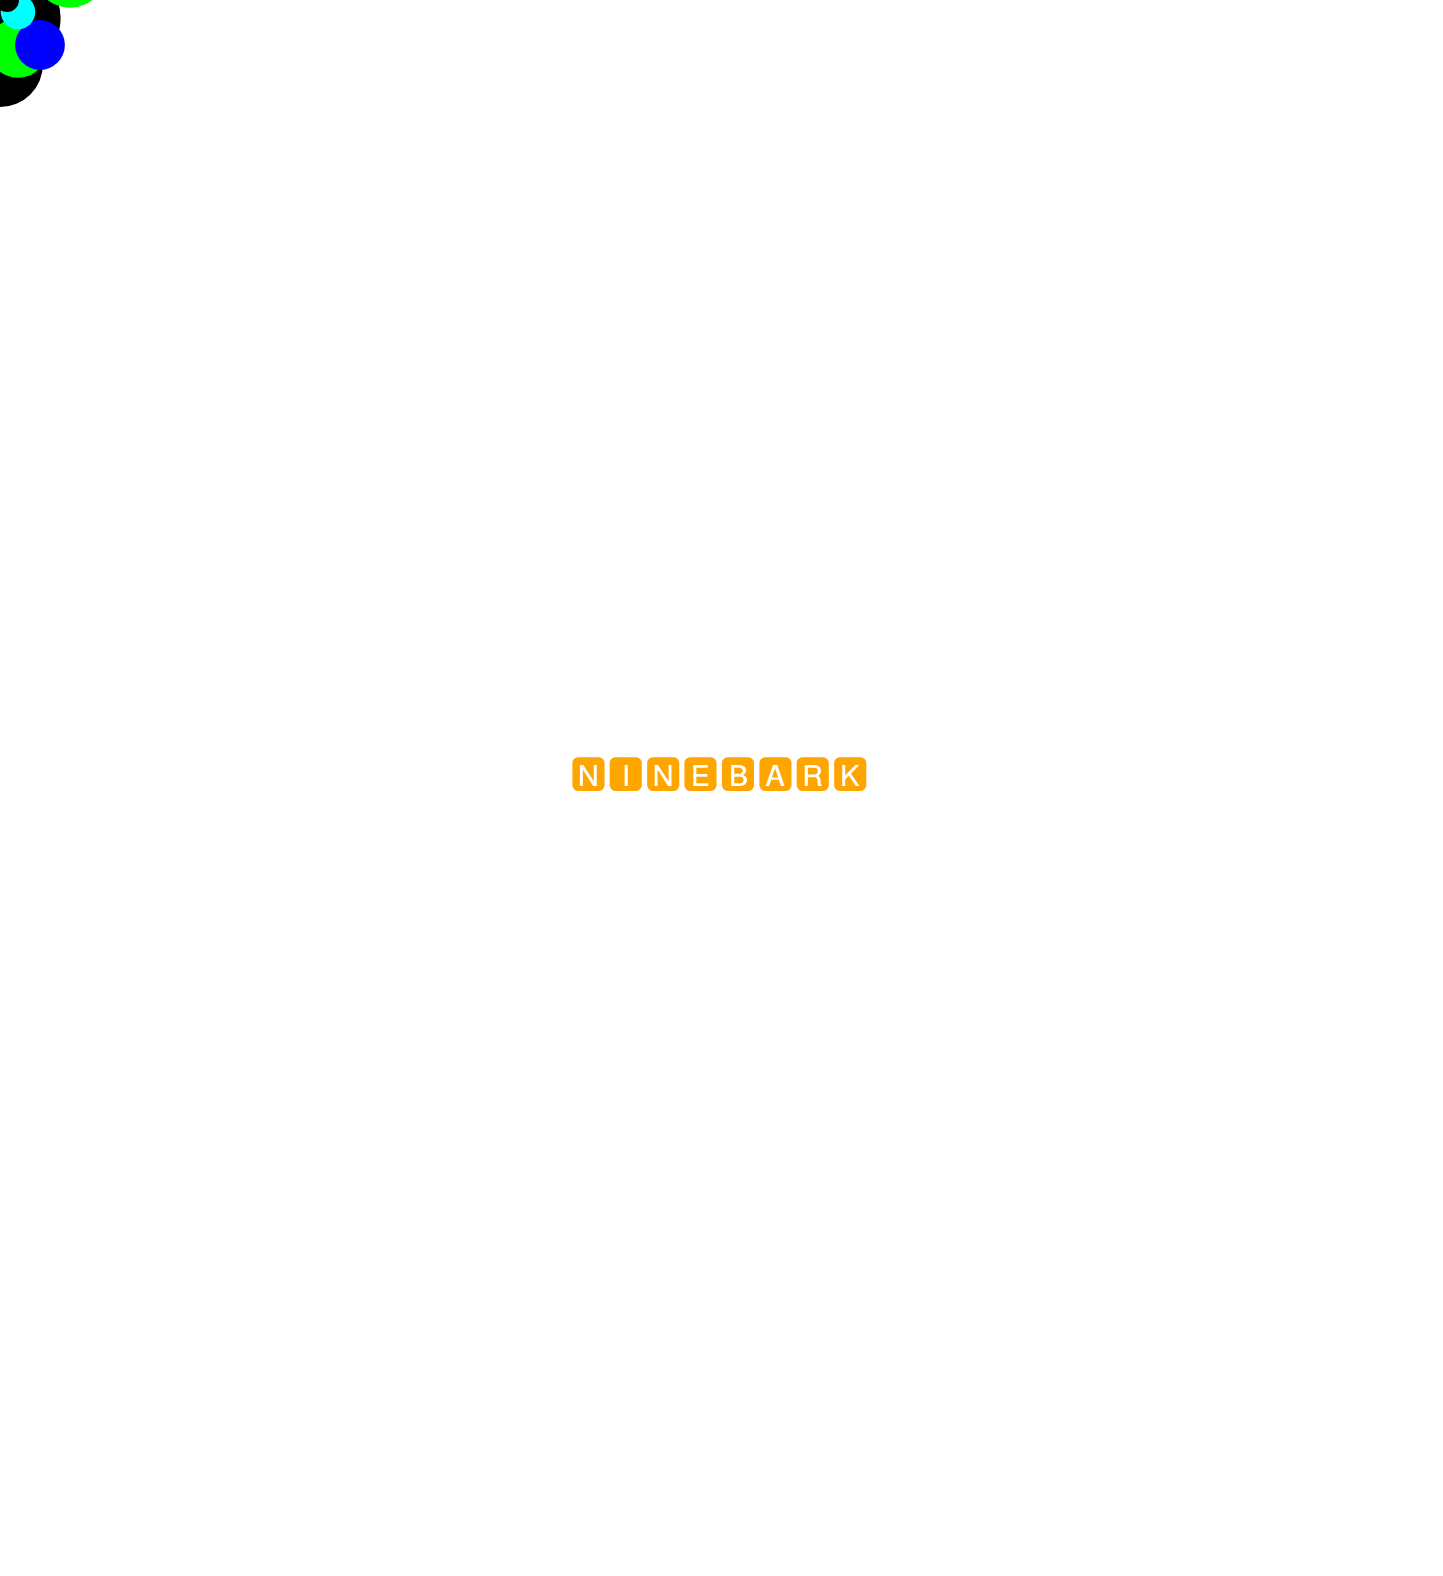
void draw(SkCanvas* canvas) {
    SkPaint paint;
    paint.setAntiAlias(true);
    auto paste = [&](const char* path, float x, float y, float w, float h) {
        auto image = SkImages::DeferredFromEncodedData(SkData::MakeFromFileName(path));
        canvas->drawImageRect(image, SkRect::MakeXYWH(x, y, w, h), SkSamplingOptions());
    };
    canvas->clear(SK_ColorWHITE);
    paste("pic1.png", 0, 0, 867, 791);
}
